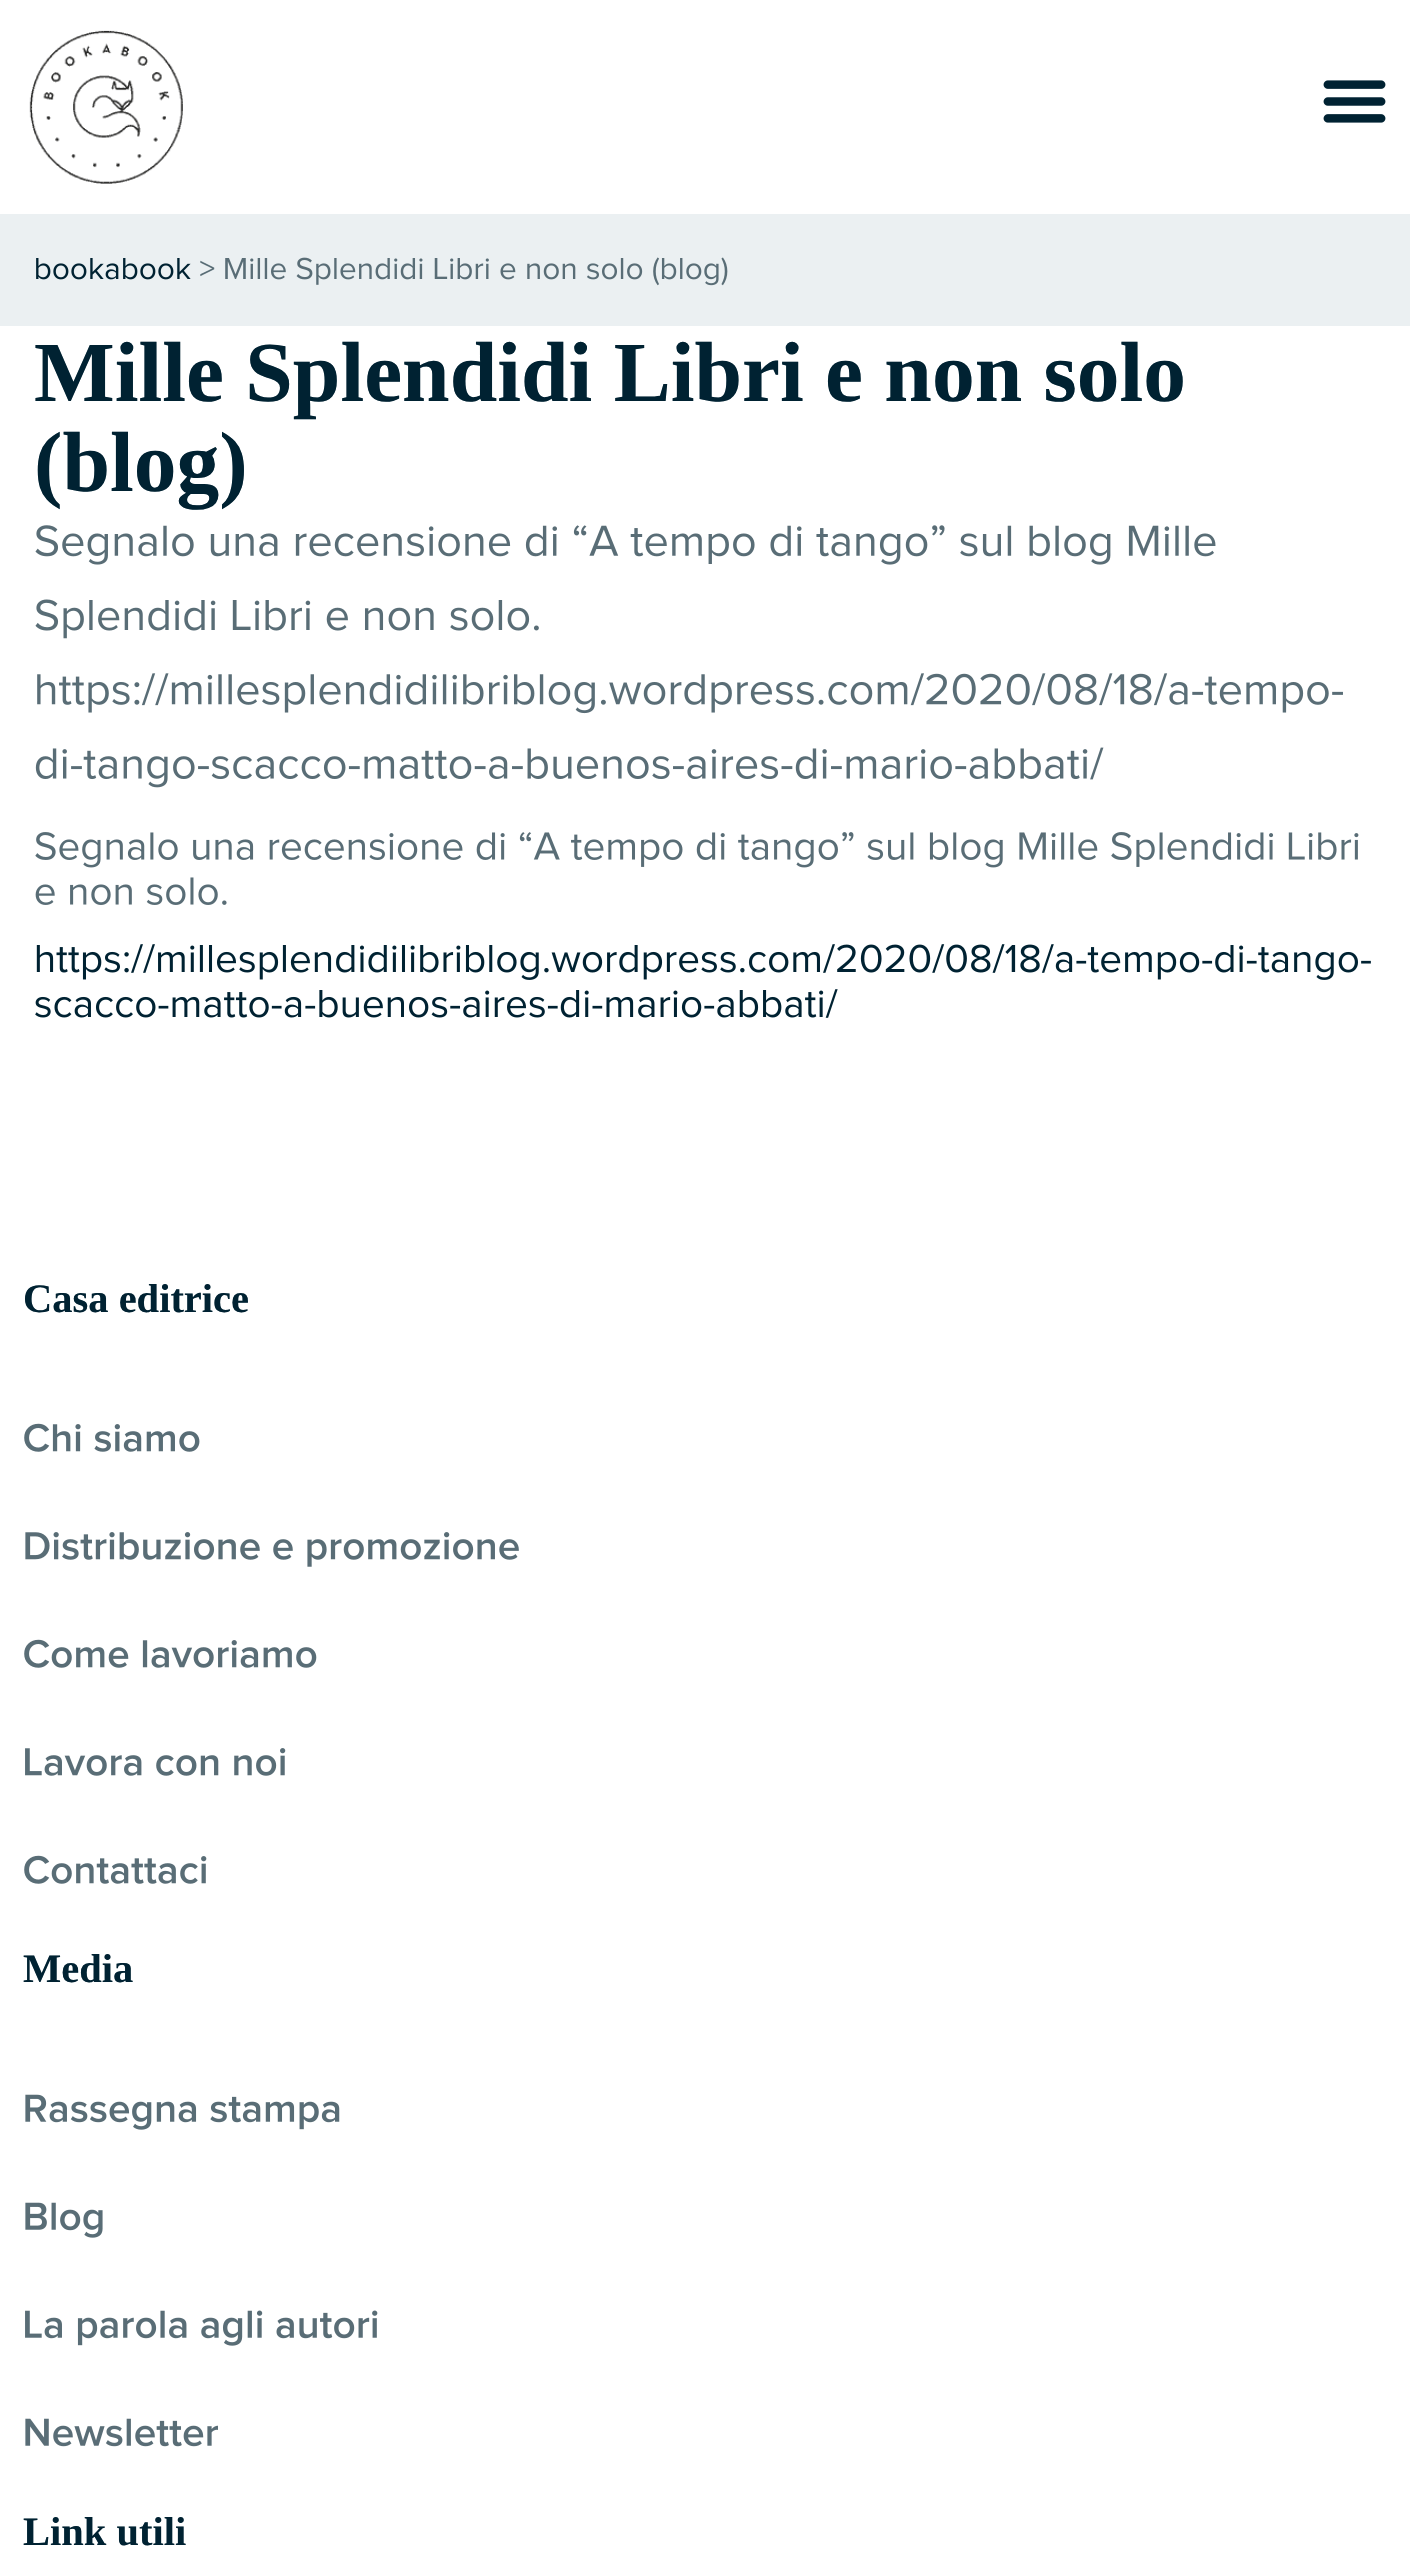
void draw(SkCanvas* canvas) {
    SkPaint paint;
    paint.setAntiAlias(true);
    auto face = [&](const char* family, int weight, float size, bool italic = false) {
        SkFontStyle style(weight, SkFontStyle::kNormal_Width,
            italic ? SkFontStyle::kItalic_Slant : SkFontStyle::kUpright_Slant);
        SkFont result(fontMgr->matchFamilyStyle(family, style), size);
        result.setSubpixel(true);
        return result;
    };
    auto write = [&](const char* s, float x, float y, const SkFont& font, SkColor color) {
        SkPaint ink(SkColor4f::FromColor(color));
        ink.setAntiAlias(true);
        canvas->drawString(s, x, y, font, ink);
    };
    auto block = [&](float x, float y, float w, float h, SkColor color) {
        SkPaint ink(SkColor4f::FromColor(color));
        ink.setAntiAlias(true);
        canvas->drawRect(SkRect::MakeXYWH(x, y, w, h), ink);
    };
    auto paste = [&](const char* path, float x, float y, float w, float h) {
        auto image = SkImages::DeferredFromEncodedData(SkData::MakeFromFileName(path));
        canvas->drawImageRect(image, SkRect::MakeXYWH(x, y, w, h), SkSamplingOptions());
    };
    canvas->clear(SK_ColorWHITE);
    paste("pic1.png", 29, 30, 154, 154);
    paste("pic2.png", 1323, 80, 63, 43);
    block(0, 214, 1410, 112, SkColorSetRGB(235, 240, 242));
    paste("pic3.png", 36, 258, 155, 22);
    paste("pic4.png", 200, 260, 15, 17);
    paste("pic5.png", 225, 257, 503, 29);
    auto kFont1 = face("Liberation Serif", 700, 85.5f);
    write("Mille Splendidi Libri e non solo", 34, 401, kFont1, SkColorSetRGB(0, 34, 50));
    write("(blog)", 34, 491, kFont1, SkColorSetRGB(0, 34, 50));
    paste("pic6.png", 35, 525, 1181, 40);
    paste("pic7.png", 35, 599, 504, 40);
    paste("pic8.png", 37, 673, 1306, 41);
    paste("pic9.png", 35, 747, 1069, 41);
    paste("pic10.png", 35, 832, 1324, 36);
    paste("pic11.png", 35, 877, 192, 28);
    paste("pic12.png", 36, 944, 1335, 36);
    paste("pic13.png", 35, 989, 803, 29);
    auto kFont2 = face("Liberation Serif", 700, 40.5f);
    write("Casa editrice", 23, 1312, kFont2, SkColorSetRGB(0, 34, 50));
    paste("pic14.png", 24, 1423, 176, 29);
    paste("pic15.png", 25, 1532, 494, 35);
    paste("pic16.png", 24, 1639, 293, 29);
    paste("pic17.png", 25, 1748, 261, 28);
    paste("pic18.png", 24, 1855, 183, 29);
    write("Media", 23, 1982, kFont2, SkColorSetRGB(0, 34, 50));
    paste("pic19.png", 25, 2094, 315, 36);
    paste("pic20.png", 25, 2202, 78, 36);
    paste("pic21.png", 25, 2310, 353, 36);
    paste("pic22.png", 25, 2418, 193, 29);
    write("Link utili", 23, 2545, kFont2, SkColorSetRGB(0, 34, 50));
}
